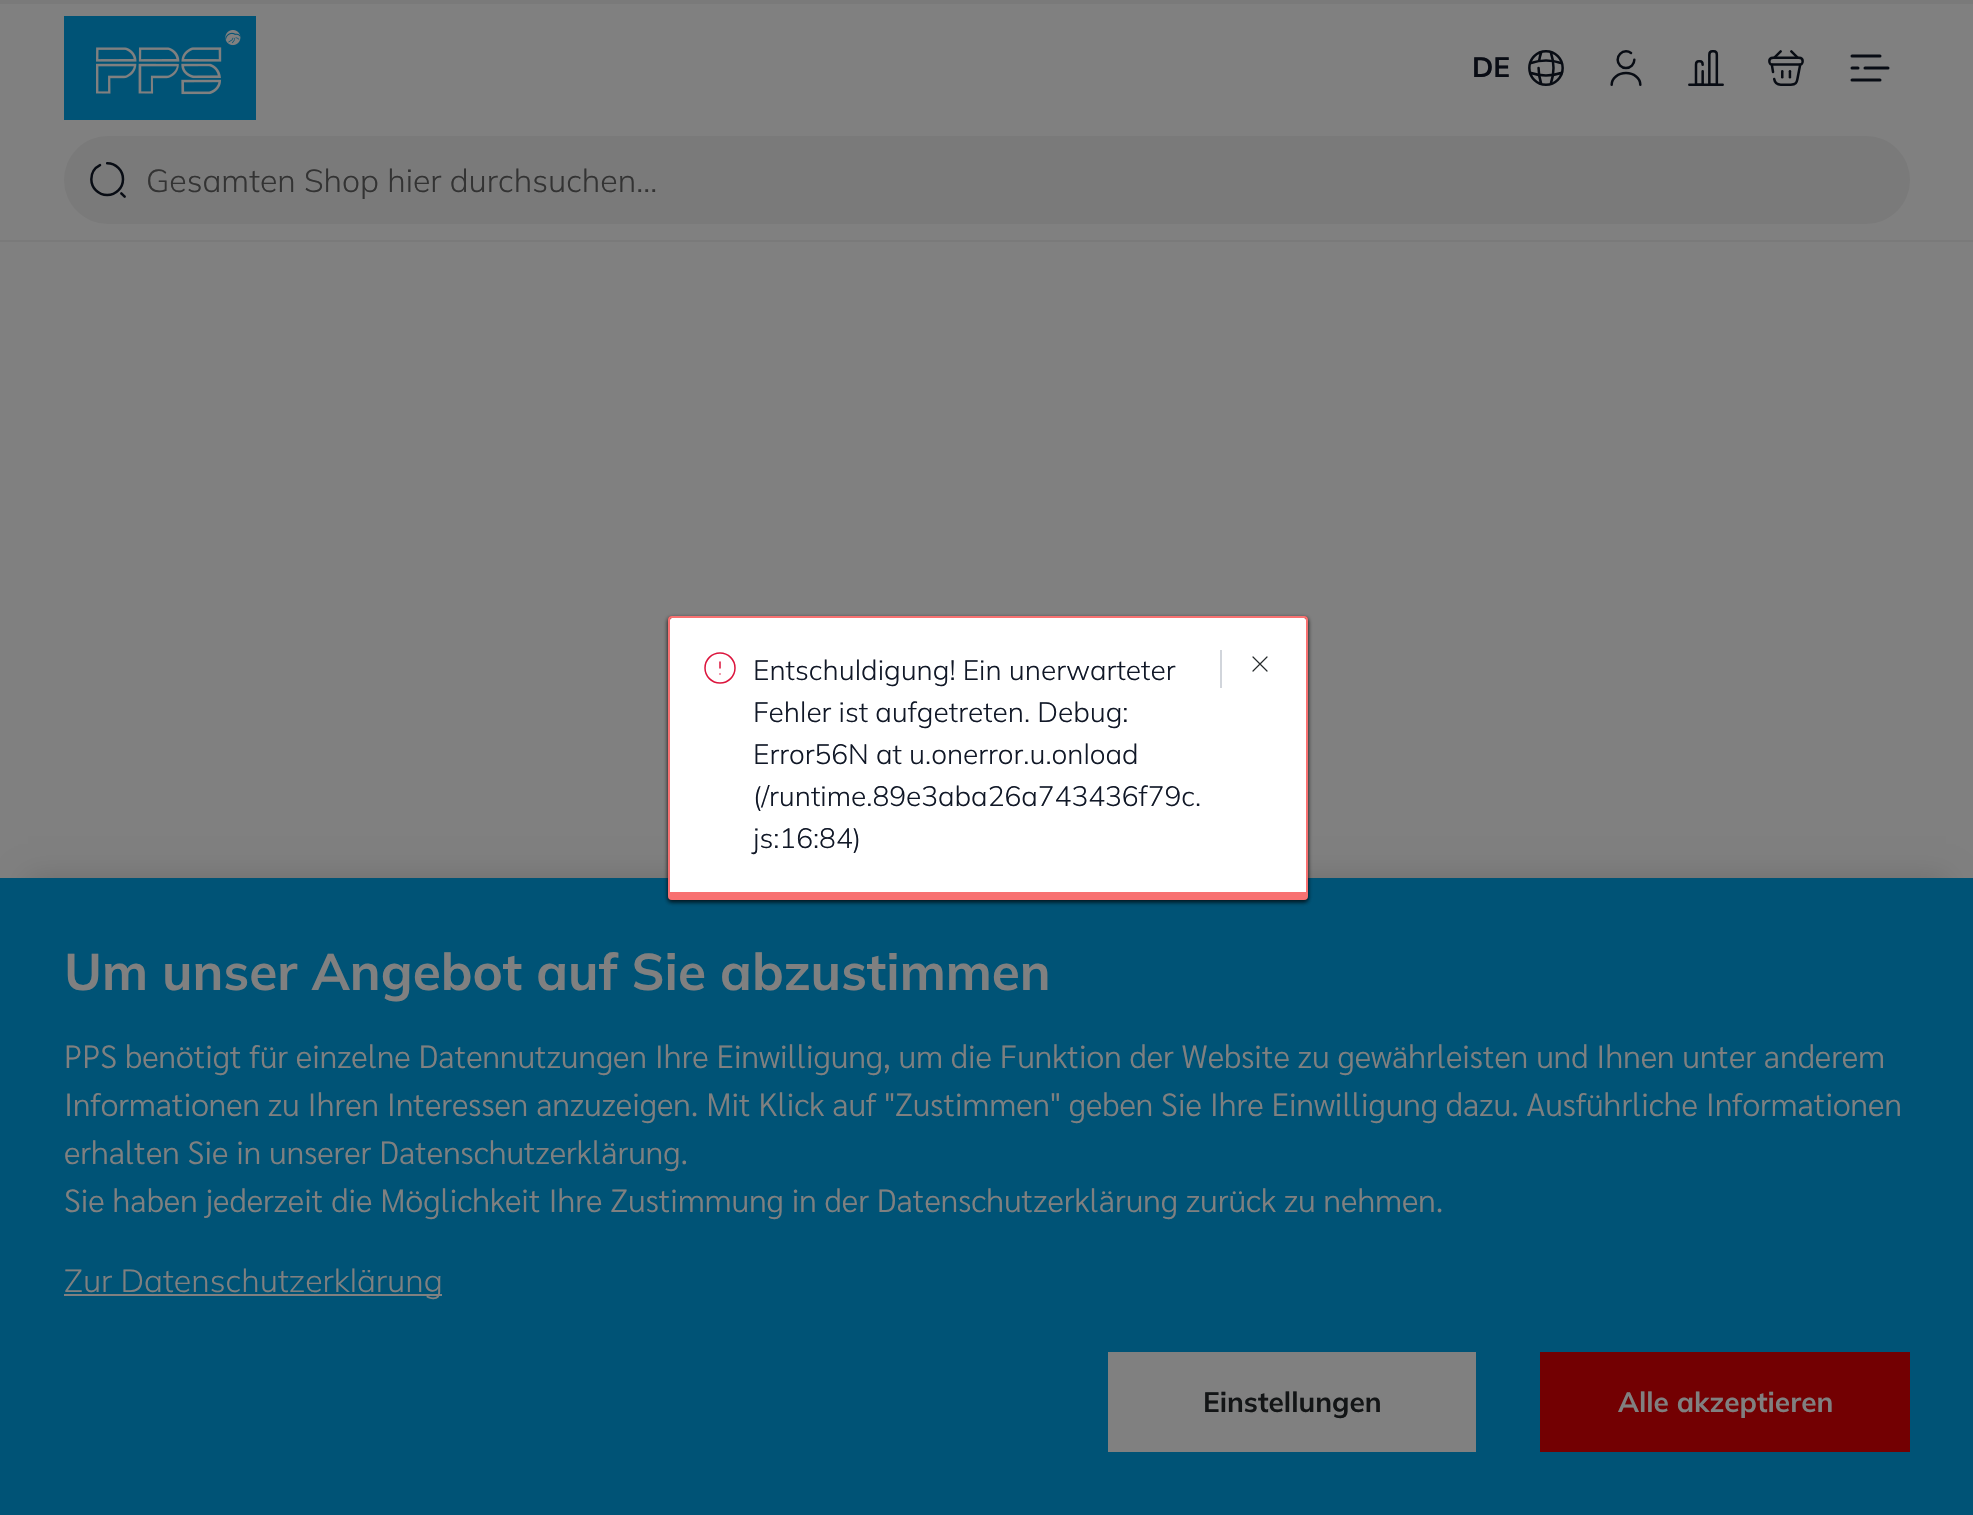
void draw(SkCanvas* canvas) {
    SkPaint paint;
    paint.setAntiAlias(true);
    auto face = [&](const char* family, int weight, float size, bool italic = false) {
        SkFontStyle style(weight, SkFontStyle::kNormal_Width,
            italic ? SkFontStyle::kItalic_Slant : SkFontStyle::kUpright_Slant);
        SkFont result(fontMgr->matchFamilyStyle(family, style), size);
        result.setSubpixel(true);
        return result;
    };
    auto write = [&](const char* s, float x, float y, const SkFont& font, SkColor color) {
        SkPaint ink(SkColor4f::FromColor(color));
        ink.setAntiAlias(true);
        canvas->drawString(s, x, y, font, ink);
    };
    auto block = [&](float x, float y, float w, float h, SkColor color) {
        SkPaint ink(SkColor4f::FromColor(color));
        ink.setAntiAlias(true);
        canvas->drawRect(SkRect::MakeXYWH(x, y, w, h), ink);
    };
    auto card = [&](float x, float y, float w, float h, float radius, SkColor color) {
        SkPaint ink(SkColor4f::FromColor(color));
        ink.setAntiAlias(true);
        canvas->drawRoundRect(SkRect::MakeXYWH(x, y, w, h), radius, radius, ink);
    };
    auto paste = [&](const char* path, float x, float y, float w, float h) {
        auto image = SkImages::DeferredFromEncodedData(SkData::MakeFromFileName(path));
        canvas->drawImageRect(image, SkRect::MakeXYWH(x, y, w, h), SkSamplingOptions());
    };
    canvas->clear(SkColorSetRGB(128, 128, 128));
    block(0, 0, 1973, 4, SkColorSetRGB(122, 122, 122));
    block(0, 240, 1973, 2, SkColorSetRGB(122, 122, 122));
    paste("pic1.png", 64, 16, 192, 104);
    auto kFont1 = face("Mulish", 700, 28);
    write("DE", 1472, 77, kFont1, SkColorSetRGB(9, 12, 20));
    paste("pic2.png", 1528, 50, 36, 36);
    paste("pic3.png", 1610, 50, 32, 36);
    paste("pic4.png", 1688, 50, 36, 36);
    paste("pic5.png", 1768, 50, 36, 36);
    paste("pic6.png", 1850, 54, 40, 28);
    card(64, 136, 1846, 88, 44, SkColorSetRGB(122, 122, 122));
    paste("pic7.png", 90, 162, 36, 36);
    auto kFont2 = face("Mulish", 300, 32);
    write("Gesamten Shop hier durchsuchen...", 146, 192, kFont2, SkColorSetRGB(51, 51, 51));
    paint.setColor(SkColorSetARGB(38, 0, 0, 0));
    paint.setMaskFilter(SkMaskFilter::MakeBlur(kNormal_SkBlurStyle, 14));
    canvas->drawRect(SkRect::MakeXYWH(28, 878, 1918, 582), paint);
    paint.setMaskFilter(nullptr);
    block(0, 878, 1973, 637, SkColorSetRGB(0, 83, 118));
    paint.setColor(SkColorSetARGB(128, 0, 0, 0));
    paint.setMaskFilter(SkMaskFilter::MakeBlur(kNormal_SkBlurStyle, 2));
    canvas->drawRoundRect(SkRect::MakeXYWH(668, 618, 640, 284), 4, 4, paint);
    paint.setMaskFilter(nullptr);
    paint.setStyle(SkPaint::kStroke_Style);
    paint.setStrokeWidth(2);
    paint.setColor(SkColorSetRGB(124, 57, 57));
    canvas->drawRoundRect(SkRect::MakeXYWH(669, 617, 638, 282), 3, 3, paint);
    auto kFont3 = face("Mulish", 700, 51.25f);
    write("Um unser Angebot auf Sie abzustimmen", 64, 990, kFont3, SkColorSetRGB(128, 128, 128));
    auto kFont4 = face("Sarabun", 300, 32);
    write("PPS benötigt für einzelne Datennutzungen Ihre Einwilligung, um die Funktion der Website zu gewährleisten und Ihnen unter anderem", 64, 1068, kFont4, SkColorSetRGB(128, 128, 128));
    write("Informationen zu Ihren Interessen anzuzeigen. Mit Klick auf \"Zustimmen\" geben Sie Ihre Einwilligung dazu. Ausführliche Informationen", 64, 1116, kFont4, SkColorSetRGB(128, 128, 128));
    write("erhalten Sie in unserer Datenschutzerklärung.", 64, 1164, kFont4, SkColorSetRGB(128, 128, 128));
    write("Sie haben jederzeit die Möglichkeit Ihre Zustimmung in der Datenschutzerklärung zurück zu nehmen.", 64, 1212, kFont4, SkColorSetRGB(128, 128, 128));
    block(64, 1294, 378, 2, SkColorSetRGB(128, 128, 128));
    write("Zur Datenschutzerklärung", 64, 1292, kFont2, SkColorSetRGB(128, 128, 128));
    block(1108, 1352, 368, 100, SkColorSetRGB(128, 128, 128));
    write("Einstellungen", 1203, 1412, kFont1, SkColorSetRGB(19, 21, 22));
    block(1540, 1352, 370, 100, SkColorSetRGB(115, 0, 2));
    write("Alle akzeptieren", 1618, 1412, kFont1, SkColorSetRGB(128, 128, 128));
    paint.setStyle(SkPaint::kFill_Style);
    paint.setColor(SkColorSetARGB(128, 0, 0, 0));
    paint.setMaskFilter(SkMaskFilter::MakeBlur(kNormal_SkBlurStyle, 2));
    canvas->drawRoundRect(SkRect::MakeXYWH(668, 618, 640, 284), 4, 4, paint);
    paint.setMaskFilter(nullptr);
    paint.setColor(SK_ColorWHITE);
    canvas->drawPath(SkPathBuilder().moveTo(672, 618).lineTo(1304, 618).cubicTo(1305, 618, 1306, 619, 1306, 620).lineTo(1306, 892).lineTo(670, 892).lineTo(670, 620).cubicTo(670, 619, 671, 618, 672, 618).close().detach(), paint);
    paint.setStyle(SkPaint::kStroke_Style);
    paint.setColor(SkColorSetRGB(248, 113, 113));
    canvas->drawRoundRect(SkRect::MakeXYWH(669, 617, 638, 282), 3, 3, paint);
    block(670, 892, 636, 6, SkColorSetRGB(248, 113, 113));
    paint.setStrokeWidth(1.5f);
    paint.setColor(SkColorSetRGB(220, 20, 60));
    canvas->drawCircle(720, 668, 15, paint);
    paint.setStrokeCap(SkPaint::kRound_Cap);
    paint.setStrokeJoin(SkPaint::kRound_Join);
    canvas->drawPath(SkPathBuilder().moveTo(720, 662).lineTo(720, 668).moveTo(720, 674).lineTo(720, 674).detach(), paint);
    auto kFont5 = face("Mulish", 300, 28);
    write("Entschuldigung! Ein unerwarteter", 753, 680, kFont5, SkColorSetRGB(17, 24, 39));
    write("Fehler ist aufgetreten. Debug:", 753, 722, kFont5, SkColorSetRGB(17, 24, 39));
    write("Error56N at u.onerror.u.onload", 753, 764, kFont5, SkColorSetRGB(17, 24, 39));
    write("(/runtime.89e3aba26a743436f79c.", 753, 806, kFont5, SkColorSetRGB(17, 24, 39));
    write("js:16:84)", 753, 848, kFont5, SkColorSetRGB(17, 24, 39));
    block(1220, 650, 2, 38, SkColorSetRGB(209, 213, 219));
    paint.setStrokeWidth(1.2f);
    paint.setColor(SkColorSetRGB(37, 42, 44));
    canvas->drawPath(SkPathBuilder().moveTo(1267, 657).lineTo(1253, 671).moveTo(1253, 657).lineTo(1267, 671).detach(), paint);
}
